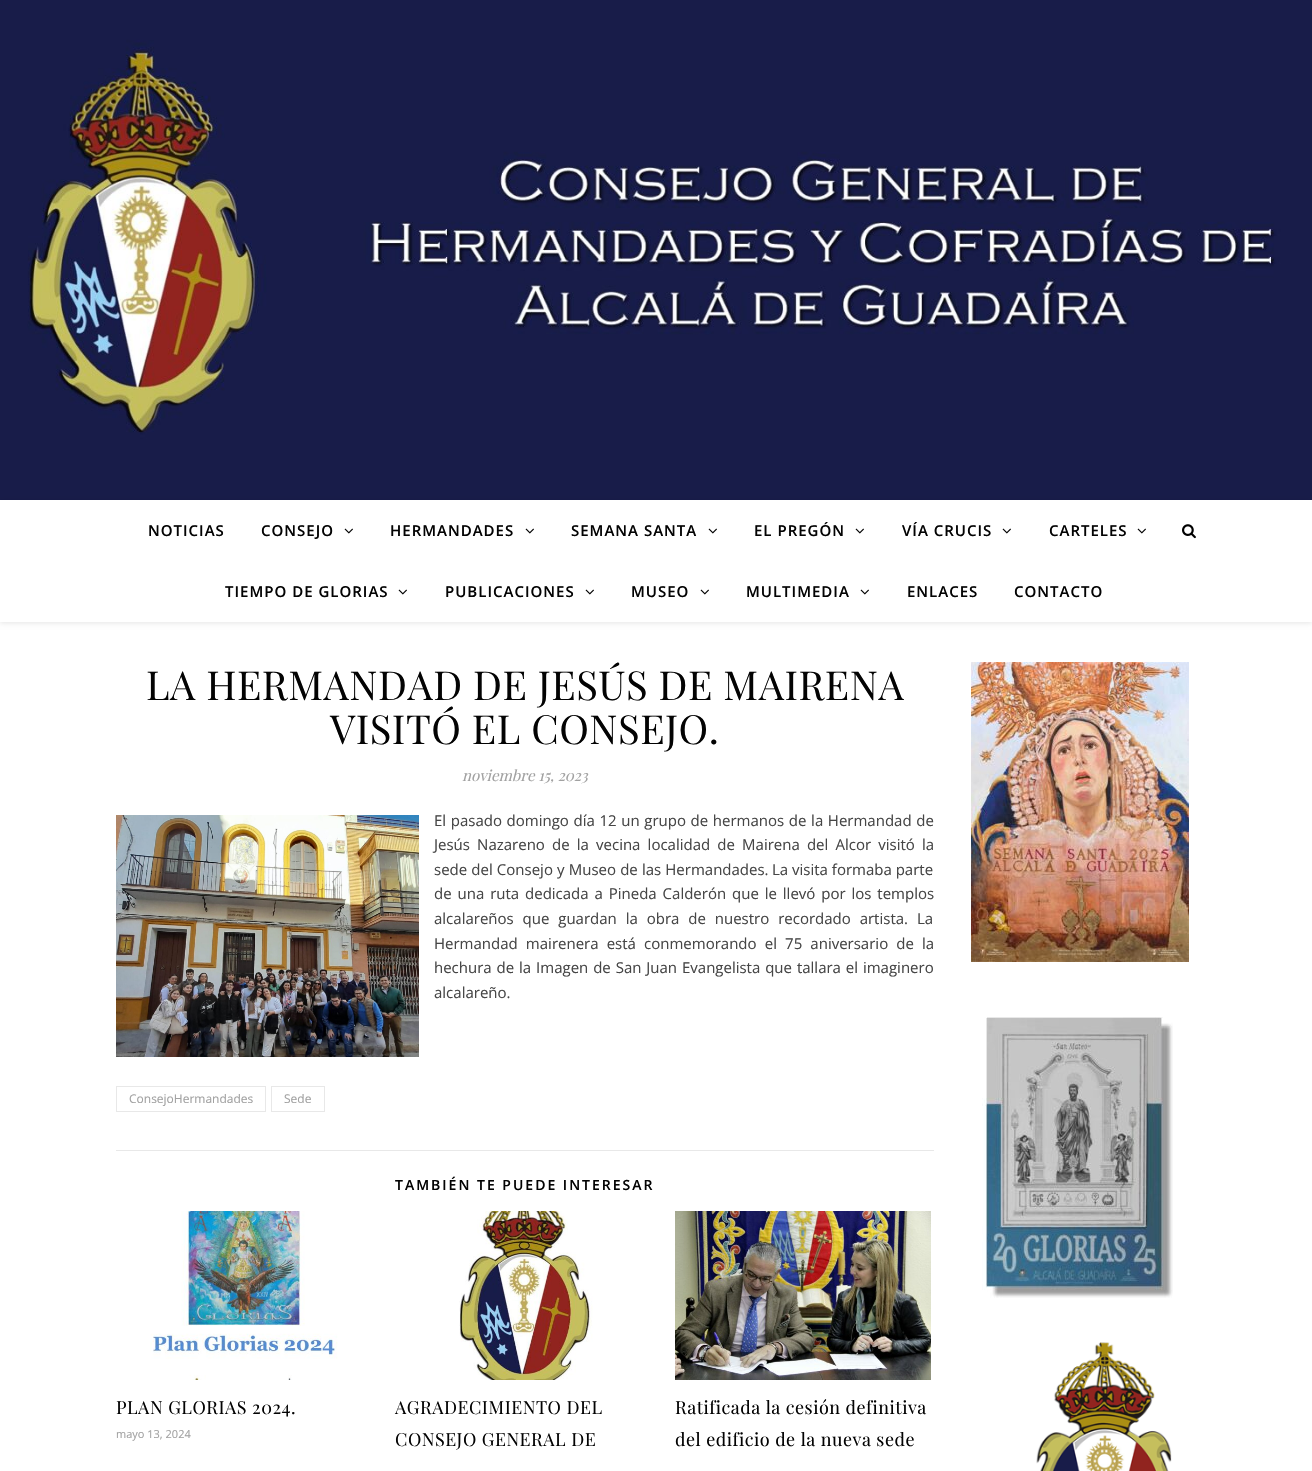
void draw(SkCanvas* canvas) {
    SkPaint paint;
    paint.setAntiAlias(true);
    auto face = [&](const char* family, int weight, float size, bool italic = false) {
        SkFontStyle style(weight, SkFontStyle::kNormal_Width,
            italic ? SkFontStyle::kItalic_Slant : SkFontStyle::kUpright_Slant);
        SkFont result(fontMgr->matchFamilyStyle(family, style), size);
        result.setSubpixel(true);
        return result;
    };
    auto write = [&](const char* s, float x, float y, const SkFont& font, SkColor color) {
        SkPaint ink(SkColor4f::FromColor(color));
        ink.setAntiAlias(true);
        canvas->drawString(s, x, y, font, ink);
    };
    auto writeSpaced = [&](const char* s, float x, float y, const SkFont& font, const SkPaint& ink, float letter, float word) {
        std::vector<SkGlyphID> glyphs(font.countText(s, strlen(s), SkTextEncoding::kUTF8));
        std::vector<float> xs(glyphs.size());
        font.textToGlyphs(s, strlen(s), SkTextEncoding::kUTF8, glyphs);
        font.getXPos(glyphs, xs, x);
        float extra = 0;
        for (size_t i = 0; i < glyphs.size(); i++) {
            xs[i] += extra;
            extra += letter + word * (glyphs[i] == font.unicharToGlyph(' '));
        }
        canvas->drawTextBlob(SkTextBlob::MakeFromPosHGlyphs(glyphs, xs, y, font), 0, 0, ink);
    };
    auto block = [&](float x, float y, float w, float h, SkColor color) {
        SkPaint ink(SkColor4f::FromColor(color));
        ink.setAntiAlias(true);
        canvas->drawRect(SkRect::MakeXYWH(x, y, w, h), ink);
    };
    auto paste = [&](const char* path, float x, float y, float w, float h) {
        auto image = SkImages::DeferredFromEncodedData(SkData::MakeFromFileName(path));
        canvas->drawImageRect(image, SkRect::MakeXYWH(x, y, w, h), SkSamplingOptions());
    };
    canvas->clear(SK_ColorWHITE);
    paste("pic1.png", 0, 0, 1312, 500);
    canvas->save();
    canvas->clipPath(SkPathBuilder(SkPathFillType::kEvenOdd).moveTo(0, 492).lineTo(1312, 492).lineTo(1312, 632).lineTo(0, 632).close().moveTo(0, 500).lineTo(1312, 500).lineTo(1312, 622).lineTo(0, 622).close().detach(), true);
    paint.setColor(SkColorSetARGB(26, 0, 0, 0));
    paint.setMaskFilter(SkMaskFilter::MakeBlur(kNormal_SkBlurStyle, 2.5f));
    canvas->drawRect(SkRect::MakeXYWH(0, 501, 1312, 122), paint);
    paint.setMaskFilter(nullptr);
    canvas->restore();
    auto kFont1 = face("Open Sans", 600, 15);
    paint.setColor(SkColorSetRGB(3, 3, 3));
    writeSpaced("NOTICIAS", 148, 536, kFont1, paint, 1, 0);
    writeSpaced("CONSEJO", 261, 536, kFont1, paint, 1, 0);
    paste("pic2.png", 344, 528, 9, 6);
    writeSpaced("HERMANDADES", 390, 536, kFont1, paint, 1, 0);
    paste("pic2.png", 525, 528, 9, 6);
    writeSpaced("SEMANA SANTA", 571, 536, kFont1, paint, 1, 0);
    paste("pic2.png", 708, 528, 9, 6);
    writeSpaced("EL PREGÓN", 754, 536, kFont1, paint, 1, 0);
    paste("pic2.png", 855, 528, 9, 6);
    writeSpaced("VÍA CRUCIS", 902, 536, kFont1, paint, 1, 0);
    paste("pic2.png", 1002, 528, 9, 6);
    writeSpaced("CARTELES", 1049, 536, kFont1, paint, 1, 0);
    paste("pic2.png", 1137, 528, 9, 6);
    writeSpaced("TIEMPO DE GLORIAS", 225, 597, kFont1, paint, 1, 0);
    paste("pic2.png", 398, 589, 9, 6);
    writeSpaced("PUBLICACIONES", 445, 597, kFont1, paint, 1, 0);
    paste("pic2.png", 585, 589, 9, 6);
    writeSpaced("MUSEO", 631, 597, kFont1, paint, 1, 0);
    paste("pic2.png", 700, 589, 9, 6);
    writeSpaced("MULTIMEDIA", 746, 597, kFont1, paint, 1, 0);
    paste("pic2.png", 860, 589, 9, 6);
    writeSpaced("ENLACES", 907, 597, kFont1, paint, 1, 0);
    writeSpaced("CONTACTO", 1014, 597, kFont1, paint, 1, 0);
    paste("pic3.png", 1182, 524, 14, 15);
    auto kFont2 = face("Playfair Display", 400, 40);
    writeSpaced("LA HERMANDAD DE JESÚS DE MAIRENA", 146, 700, kFont2, paint, 0.5f, 0);
    writeSpaced("VISITÓ EL CONSEJO.", 330, 744, kFont2, paint, 0.5f, 0);
    auto kFont3 = face("Playfair Display", 400, 15, true);
    write("noviembre 15, 2023", 462, 781, kFont3, SkColorSetRGB(161, 161, 161));
    paste("pic4.png", 116, 815, 303, 242);
    auto kFont4 = face("Open Sans", 400, 15);
    paint.setColor(SkColorSetRGB(70, 70, 70));
    writeSpaced("El pasado domingo día 12 un grupo de hermanos de la Hermandad de", 434, 826, kFont4, paint, 0, 0.75f);
    writeSpaced("Jesús Nazareno de la vecina localidad de Mairena del Alcor visitó la", 434, 850, kFont4, paint, 0, 3.25f);
    writeSpaced("sede del Consejo y Museo de las Hermandades.", 434, 875, kFont4, paint, 0, 0.25f);
    write("La visita formaba parte", 772, 875, kFont4, SkColorSetRGB(70, 70, 70));
    writeSpaced("de una ruta dedicada a Pineda Calderón que le llevó por los templos", 434, 899, kFont4, paint, 0, 2);
    writeSpaced("alcalareños que guardan la obra de nuestro recordado artista. La", 434, 924, kFont4, paint, 0, 5);
    writeSpaced("Hermandad mairenera está conmemorando el 75 aniversario de la", 434, 949, kFont4, paint, 0, 4.25f);
    writeSpaced("hechura de la Imagen de San Juan Evangelista que tallara el imaginero", 434, 973, kFont4, paint, 0, 1);
    write("alcalareño.", 434, 998, kFont4, SkColorSetRGB(70, 70, 70));
    block(116, 1150, 818, 1, SkColorSetRGB(232, 232, 232));
    paint.setStyle(SkPaint::kStroke_Style);
    paint.setStrokeWidth(1);
    paint.setColor(SkColorSetRGB(232, 232, 232));
    canvas->drawRect(SkRect::MakeXYWH(116.5f, 1086.5f, 149, 25), paint);
    auto kFont5 = face("Open Sans", 400, 12);
    write("ConsejoHermandades", 129, 1103, kFont5, SkColorSetRGB(161, 161, 161));
    canvas->drawRect(SkRect::MakeXYWH(271.5f, 1086.5f, 53, 25), paint);
    write("Sede", 284, 1103, kFont5, SkColorSetRGB(161, 161, 161));
    auto kFont6 = face("Open Sans", 600, 14);
    paint.setStyle(SkPaint::kFill_Style);
    paint.setColor(SkColorSetRGB(3, 3, 3));
    writeSpaced("TAMBIÉN TE PUEDE INTERESAR", 395, 1190, kFont6, paint, 2, 0);
    paste("pic5.png", 150, 1211, 188, 169);
    auto kFont7 = face("Playfair Display", 400, 18);
    writeSpaced("PLAN GLORIAS 2024.", 116, 1414, kFont7, paint, 0.5f, 0);
    auto kFont8 = face("Open Sans", 400, 11);
    write("mayo 13, 2024", 116, 1438, kFont8, SkColorSetRGB(161, 161, 161));
    paste("pic6.png", 459, 1211, 134, 169);
    writeSpaced("AGRADECIMIENTO DEL", 395, 1414, kFont7, paint, 0.5f, 0);
    writeSpaced("CONSEJO GENERAL DE", 395, 1446, kFont7, paint, 0.5f, 0);
    paste("pic7.png", 675, 1211, 256, 169);
    writeSpaced("Ratificada la cesión definitiva", 675, 1414, kFont7, paint, 0.5f, 0);
    writeSpaced("del edificio de la nueva sede", 675, 1446, kFont7, paint, 0.5f, 0);
    paste("pic8.png", 971, 662, 218, 300);
    paste("pic9.png", 982, 1017, 191, 281);
    paste("pic10.png", 1036, 1342, 136, 129);
}
